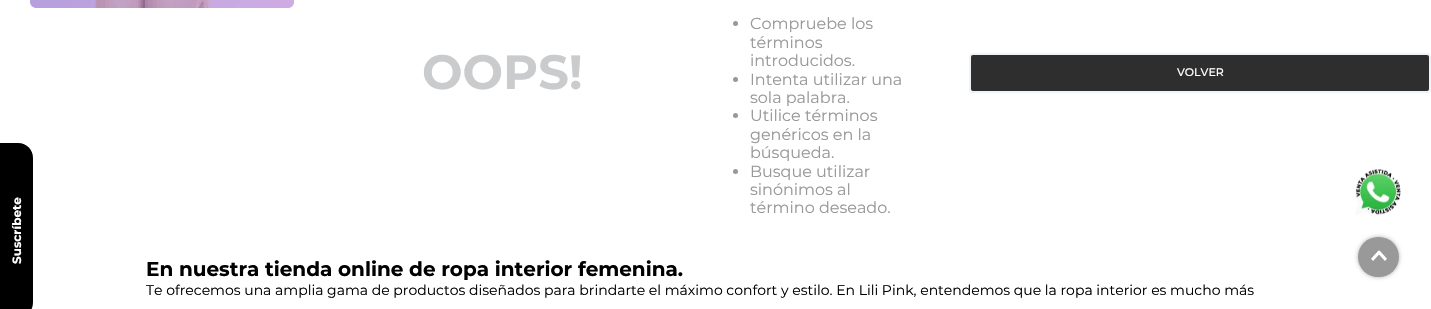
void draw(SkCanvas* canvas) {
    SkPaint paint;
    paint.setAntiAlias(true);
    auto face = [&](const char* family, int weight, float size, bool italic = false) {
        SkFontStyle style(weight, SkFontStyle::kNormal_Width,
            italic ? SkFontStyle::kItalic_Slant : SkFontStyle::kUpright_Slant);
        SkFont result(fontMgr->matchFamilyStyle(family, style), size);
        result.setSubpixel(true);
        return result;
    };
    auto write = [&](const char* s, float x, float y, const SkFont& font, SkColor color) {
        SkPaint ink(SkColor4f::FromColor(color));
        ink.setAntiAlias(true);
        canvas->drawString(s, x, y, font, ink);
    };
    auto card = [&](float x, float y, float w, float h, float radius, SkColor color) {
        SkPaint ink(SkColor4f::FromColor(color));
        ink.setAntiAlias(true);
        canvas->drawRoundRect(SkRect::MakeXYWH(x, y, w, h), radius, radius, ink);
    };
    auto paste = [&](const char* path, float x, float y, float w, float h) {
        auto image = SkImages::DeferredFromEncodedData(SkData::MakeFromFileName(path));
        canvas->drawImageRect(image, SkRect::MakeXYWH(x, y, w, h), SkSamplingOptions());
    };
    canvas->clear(SK_ColorWHITE);
    paste("pic1.png", 30, 0, 264, 8);
    auto kFont1 = face("Montserrat", 700, 48);
    write("OOPS!", 422, 89, kFont1, SkColorSetRGB(202, 203, 204));
    paint.setColor(SkColorSetRGB(151, 152, 153));
    canvas->drawCircle(735.5f, 23.5f, 2.5f, paint);
    auto kFont2 = face("Montserrat", 400, 16);
    write("Compruebe los", 750, 29, kFont2, SkColorSetRGB(151, 152, 153));
    write("términos", 750, 48, kFont2, SkColorSetRGB(151, 152, 153));
    write("introducidos.", 750, 66, kFont2, SkColorSetRGB(151, 152, 153));
    canvas->drawCircle(735.5f, 79.5f, 2.5f, paint);
    write("Intenta utilizar una", 750, 85, kFont2, SkColorSetRGB(151, 152, 153));
    write("sola palabra.", 750, 103, kFont2, SkColorSetRGB(151, 152, 153));
    canvas->drawCircle(735.5f, 115.5f, 2.5f, paint);
    write("Utilice términos", 750, 121, kFont2, SkColorSetRGB(151, 152, 153));
    write("genéricos en la", 750, 140, kFont2, SkColorSetRGB(151, 152, 153));
    write("búsqueda.", 750, 158, kFont2, SkColorSetRGB(151, 152, 153));
    canvas->drawCircle(735.5f, 171.5f, 2.5f, paint);
    write("Busque utilizar", 750, 177, kFont2, SkColorSetRGB(151, 152, 153));
    write("sinónimos al", 750, 195, kFont2, SkColorSetRGB(151, 152, 153));
    write("término deseado.", 750, 213, kFont2, SkColorSetRGB(151, 152, 153));
    paint.setColor(SkColorSetRGB(46, 46, 46));
    canvas->drawRoundRect(SkRect::MakeXYWH(970, 54, 460, 38), 3, 3, paint);
    paint.setStyle(SkPaint::kStroke_Style);
    paint.setStrokeWidth(2);
    paint.setColor(SkColorSetRGB(238, 243, 247));
    canvas->drawRoundRect(SkRect::MakeXYWH(970, 54, 460, 38), 3, 3, paint);
    auto kFont3 = face("Montserrat", 500, 11);
    write("VOLVER", 1177, 76, kFont3, SK_ColorWHITE);
    auto kFont4 = face("Montserrat", 700, 20);
    write("En nuestra tienda online de ropa interior femenina.", 146, 276, kFont4, SK_ColorBLACK);
    auto kFont5 = face("Montserrat", 400, 14);
    write("Te ofrecemos una amplia gama de productos diseñados para brindarte el máximo confort y estilo. En Lili Pink, entendemos que la ropa interior es mucho más", 146, 295, kFont5, SK_ColorBLACK);
    paste("pic2.png", 1355, 169, 46, 46);
    paint.setStyle(SkPaint::kFill_Style);
    paint.setColor(SK_ColorBLACK);
    canvas->drawPath(SkPathBuilder().moveTo(-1, 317).lineTo(-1, 143).lineTo(18, 143).cubicTo(27, 143, 33, 150, 33, 158).lineTo(33, 302).cubicTo(33, 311, 27, 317, 18, 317).close().detach(), paint);
    auto kFont6 = face("Montserrat", 700, 12);
    canvas->save();
    canvas->rotate(-90, 21, 264);
    write("Suscríbete", 21, 264, kFont6, SK_ColorWHITE);
    canvas->restore();
    paint.setColor(SkColorSetARGB(77, 0, 0, 0));
    paint.setMaskFilter(SkMaskFilter::MakeBlur(kNormal_SkBlurStyle, 2));
    canvas->drawRoundRect(SkRect::MakeXYWH(1358, 237, 41, 40), 20, 20, paint);
    paint.setMaskFilter(nullptr);
    card(1358, 237, 41, 40, 20, SkColorSetRGB(153, 153, 153));
    paste("pic3.png", 1371, 250, 16, 11);
}
